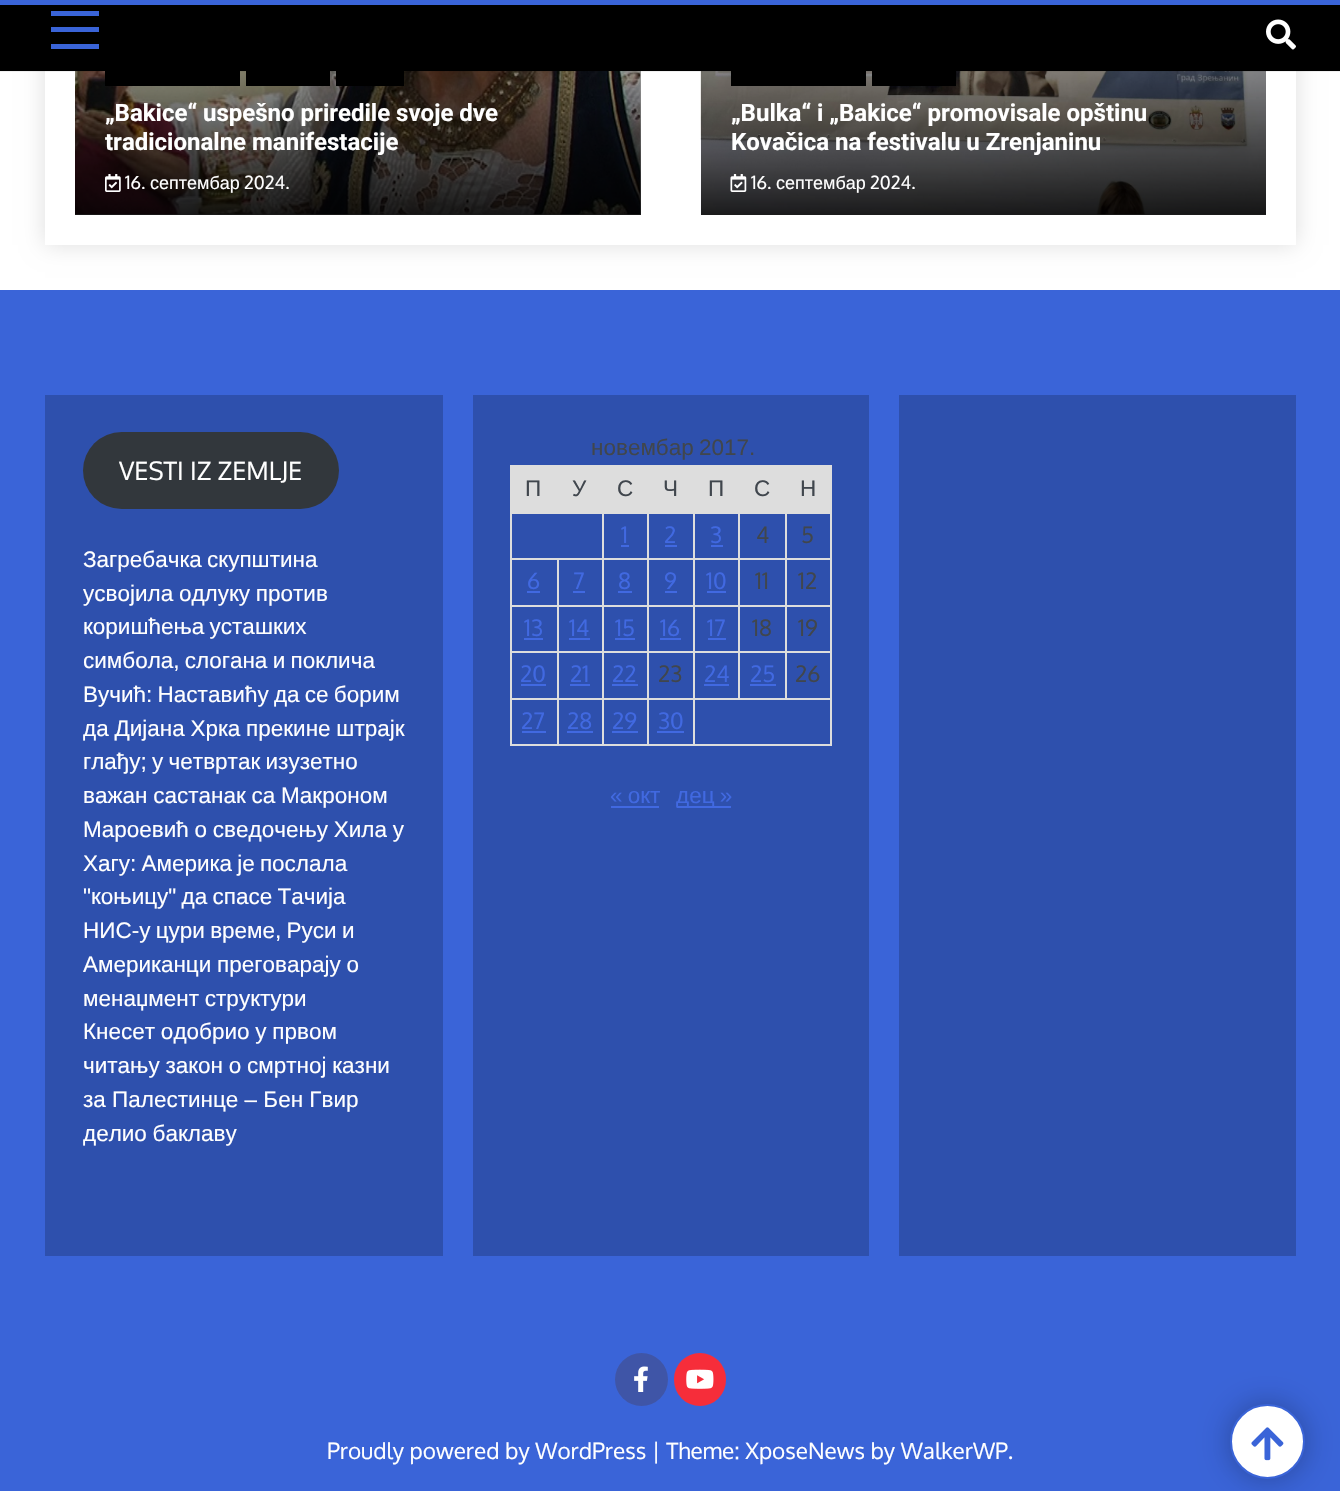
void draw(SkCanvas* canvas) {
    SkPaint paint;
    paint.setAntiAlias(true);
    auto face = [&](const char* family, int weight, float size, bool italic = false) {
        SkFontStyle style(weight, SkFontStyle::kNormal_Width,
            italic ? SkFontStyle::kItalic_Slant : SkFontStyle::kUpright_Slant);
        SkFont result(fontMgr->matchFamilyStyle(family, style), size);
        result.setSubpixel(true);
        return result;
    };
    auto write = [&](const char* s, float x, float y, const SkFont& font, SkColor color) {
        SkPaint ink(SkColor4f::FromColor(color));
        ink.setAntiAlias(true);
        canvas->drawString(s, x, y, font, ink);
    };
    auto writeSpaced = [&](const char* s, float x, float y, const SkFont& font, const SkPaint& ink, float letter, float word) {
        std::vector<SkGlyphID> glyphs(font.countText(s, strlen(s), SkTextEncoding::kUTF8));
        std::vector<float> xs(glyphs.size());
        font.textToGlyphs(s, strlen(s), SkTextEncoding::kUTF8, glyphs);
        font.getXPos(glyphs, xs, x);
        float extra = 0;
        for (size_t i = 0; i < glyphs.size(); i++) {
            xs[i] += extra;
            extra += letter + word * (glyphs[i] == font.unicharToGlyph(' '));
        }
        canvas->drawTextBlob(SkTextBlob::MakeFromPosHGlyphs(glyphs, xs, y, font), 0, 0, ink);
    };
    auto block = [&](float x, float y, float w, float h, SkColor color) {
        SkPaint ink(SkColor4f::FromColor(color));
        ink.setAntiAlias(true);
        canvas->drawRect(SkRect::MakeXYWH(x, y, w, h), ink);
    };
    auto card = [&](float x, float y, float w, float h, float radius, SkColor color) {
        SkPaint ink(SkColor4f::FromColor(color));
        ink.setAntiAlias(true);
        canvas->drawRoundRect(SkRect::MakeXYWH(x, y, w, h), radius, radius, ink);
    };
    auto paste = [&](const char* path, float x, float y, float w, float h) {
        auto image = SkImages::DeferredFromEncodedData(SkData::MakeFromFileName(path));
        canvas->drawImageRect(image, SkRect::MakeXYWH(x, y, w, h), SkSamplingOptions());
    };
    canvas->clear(SK_ColorWHITE);
    paint.setColor(SkColorSetARGB(33, 0, 0, 0));
    paint.setMaskFilter(SkMaskFilter::MakeBlur(kNormal_SkBlurStyle, 11));
    canvas->drawRect(SkRect::MakeXYWH(45, -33, 1251, 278), paint);
    paint.setMaskFilter(nullptr);
    block(45, 71, 1251, 174, SK_ColorWHITE);
    paste("pic2.png", 75, 71, 566, 144);
    {
        const SkColor colors[] = {SkColorSetARGB(0, 0, 0, 0), SkColorSetARGB(227, 0, 0, 0)};
        const float stops[] = {0, 1};
        const SkPoint ends[] = {{358, -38}, {358, 215}};
        paint.setShader(SkGradientShader::MakeLinear(ends, colors, stops, 2, SkTileMode::kClamp));
        paint.setAlpha(255);
    }
    canvas->drawRect(SkRect::MakeXYWH(75, 71, 566, 144), paint);
    block(105, 71, 135, 15, SK_ColorBLACK);
    block(246, 71, 84, 15, SK_ColorBLACK);
    block(336, 71, 68, 15, SK_ColorBLACK);
    paste("pic4.png", 700, 71, 566, 144);
    {
        const SkColor colors[] = {SkColorSetARGB(0, 0, 0, 0), SkColorSetARGB(227, 0, 0, 0)};
        const float stops[] = {0, 1};
        const SkPoint ends[] = {{983, -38}, {983, 215}};
        paint.setShader(SkGradientShader::MakeLinear(ends, colors, stops, 2, SkTileMode::kClamp));
        paint.setAlpha(255);
    }
    canvas->drawRect(SkRect::MakeXYWH(701, 71, 565, 144), paint);
    block(731, 71, 135, 15, SK_ColorBLACK);
    block(872, 71, 84, 15, SK_ColorBLACK);
    paint.setStyle(SkPaint::kStroke_Style);
    paint.setStrokeWidth(2);
    paint.setShader(nullptr);
    paint.setColor(SkColorSetARGB(15, 0, 0, 0));
    canvas->drawRect(SkRect::MakeXYWH(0, 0, 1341, 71), paint);
    block(0, 5, 1340, 66, SK_ColorBLACK);
    block(51, 11, 48, 5, SkColorSetRGB(58, 100, 216));
    block(51, 27, 48, 5, SkColorSetRGB(58, 100, 216));
    block(51, 44, 48, 5, SkColorSetRGB(58, 100, 216));
    paste("pic1.png", 1266, 19, 30, 31);
    block(0, 0, 1340, 5, SkColorSetRGB(58, 100, 216));
    auto kFont1 = face("Roboto", 700, 24);
    write("„Bakice“ uspešno priredile svoje dve", 105, 121, kFont1, SK_ColorWHITE);
    write("tradicionalne manifestacije", 105, 150, kFont1, SK_ColorWHITE);
    paste("pic3.png", 105, 174, 16, 18);
    auto kFont2 = face("Oxygen", 400, 18);
    write("16.", 125, 189, kFont2, SK_ColorWHITE);
    auto kFont3 = face("Liberation Sans", 400, 18);
    write("септембар", 150, 189, kFont3, SK_ColorWHITE);
    write("2024.", 244, 189, kFont2, SK_ColorWHITE);
    write("„Bulka“ i „Bakice“ promovisale opštinu", 731, 121, kFont1, SK_ColorWHITE);
    write("Kovačica na festivalu u Zrenjaninu", 731, 150, kFont1, SK_ColorWHITE);
    paste("pic5.png", 730, 174, 17, 18);
    write("16.", 751, 189, kFont2, SK_ColorWHITE);
    write("септембар", 776, 189, kFont3, SK_ColorWHITE);
    write("2024.", 870, 189, kFont2, SK_ColorWHITE);
    block(0, 290, 1340, 1201, SkColorSetRGB(58, 100, 216));
    block(45, 395, 398, 861, SkColorSetRGB(46, 80, 173));
    card(83, 432, 256, 77, 38.5f, SkColorSetRGB(50, 55, 60));
    auto kFont4 = face("Oxygen", 400, 25.25f);
    write("VESTI IZ ZEMLJE", 119, 480, kFont4, SK_ColorWHITE);
    auto kFont5 = face("Liberation Sans", 400, 22.5f);
    paint.setStyle(SkPaint::kFill_Style);
    paint.setColor(SK_ColorWHITE);
    writeSpaced("Загребачка скупштина", 83, 567, kFont5, paint, 0, -1);
    writeSpaced("усвојила одлуку против", 83, 601, kFont5, paint, 0, -0.5f);
    writeSpaced("коришћења усташких", 83, 634, kFont5, paint, 0, -1);
    writeSpaced("симбола, слогана и поклича", 83, 668, kFont5, paint, 0, -1);
    writeSpaced("Вучић: Наставићу да се борим", 83, 702, kFont5, paint, 0, -1);
    writeSpaced("да Дијана Хрка прекине штрајк", 83, 736, kFont5, paint, 0, -0.5f);
    writeSpaced("глађу; у четвртак изузетно", 83, 769, kFont5, paint, 0, -1);
    writeSpaced("важан састанак са Макроном", 83, 803, kFont5, paint, 0, -0.5f);
    writeSpaced("Мароевић о сведочењу Хила у", 83, 837, kFont5, paint, 0, -0.5f);
    writeSpaced("Хагу: Америка је послала", 83, 871, kFont5, paint, 0, -1);
    writeSpaced("\"коњицу\" да спасе Тачија", 83, 904, kFont5, paint, 0, -1);
    writeSpaced("НИС-у цури време, Руси и", 83, 938, kFont5, paint, 0, -1);
    writeSpaced("Американци преговарају о", 83, 972, kFont5, paint, 0, -0.5f);
    writeSpaced("менаџмент структури", 83, 1006, kFont5, paint, 0, -0.5f);
    writeSpaced("Кнесет одобрио у првом", 83, 1039, kFont5, paint, 0, -0.5f);
    writeSpaced("читању закон о смртној казни", 83, 1073, kFont5, paint, 0, -0.5f);
    write("за Палестинце – Бен Гвир", 83, 1107, kFont5, SK_ColorWHITE);
    writeSpaced("делио баклаву", 83, 1141, kFont5, paint, 0, -0.5f);
    block(473, 395, 396, 861, SkColorSetRGB(46, 80, 173));
    paint.setColor(SkColorSetRGB(64, 70, 77));
    writeSpaced("новембар 2017.", 591, 455, kFont5, paint, 0, -1);
    block(785, 513, 46, 1, SkColorSetRGB(221, 221, 221));
    block(785, 558, 46, 2, SkColorSetRGB(221, 221, 221));
    block(785, 605, 46, 2, SkColorSetRGB(221, 221, 221));
    block(785, 651, 46, 2, SkColorSetRGB(221, 221, 221));
    block(693, 698, 138, 2, SkColorSetRGB(221, 221, 221));
    block(785, 651, 2, 48, SkColorSetRGB(221, 221, 221));
    block(738, 651, 48, 2, SkColorSetRGB(221, 221, 221));
    block(785, 605, 2, 48, SkColorSetRGB(221, 221, 221));
    block(738, 605, 48, 2, SkColorSetRGB(221, 221, 221));
    block(785, 558, 2, 48, SkColorSetRGB(221, 221, 221));
    block(738, 558, 48, 2, SkColorSetRGB(221, 221, 221));
    block(785, 512, 2, 48, SkColorSetRGB(221, 221, 221));
    block(738, 513, 48, 1, SkColorSetRGB(221, 221, 221));
    block(738, 651, 2, 48, SkColorSetRGB(221, 221, 221));
    block(693, 651, 47, 2, SkColorSetRGB(221, 221, 221));
    block(738, 605, 2, 48, SkColorSetRGB(221, 221, 221));
    block(693, 605, 47, 2, SkColorSetRGB(221, 221, 221));
    block(738, 558, 2, 48, SkColorSetRGB(221, 221, 221));
    block(693, 558, 47, 2, SkColorSetRGB(221, 221, 221));
    block(738, 512, 2, 48, SkColorSetRGB(221, 221, 221));
    block(693, 513, 47, 1, SkColorSetRGB(221, 221, 221));
    block(830, 698, 2, 48, SkColorSetRGB(221, 221, 221));
    block(693, 744, 138, 2, SkColorSetRGB(221, 221, 221));
    block(693, 698, 2, 48, SkColorSetRGB(221, 221, 221));
    block(647, 698, 48, 2, SkColorSetRGB(221, 221, 221));
    block(693, 651, 2, 48, SkColorSetRGB(221, 221, 221));
    block(647, 651, 48, 2, SkColorSetRGB(221, 221, 221));
    block(693, 605, 2, 48, SkColorSetRGB(221, 221, 221));
    block(647, 605, 48, 2, SkColorSetRGB(221, 221, 221));
    block(693, 558, 2, 48, SkColorSetRGB(221, 221, 221));
    block(647, 558, 48, 2, SkColorSetRGB(221, 221, 221));
    block(693, 512, 2, 48, SkColorSetRGB(221, 221, 221));
    block(647, 513, 48, 1, SkColorSetRGB(221, 221, 221));
    block(647, 744, 48, 2, SkColorSetRGB(221, 221, 221));
    block(647, 698, 2, 48, SkColorSetRGB(221, 221, 221));
    block(602, 698, 46, 2, SkColorSetRGB(221, 221, 221));
    block(647, 651, 2, 48, SkColorSetRGB(221, 221, 221));
    block(602, 651, 46, 2, SkColorSetRGB(221, 221, 221));
    block(647, 605, 2, 48, SkColorSetRGB(221, 221, 221));
    block(602, 605, 46, 2, SkColorSetRGB(221, 221, 221));
    block(647, 558, 2, 48, SkColorSetRGB(221, 221, 221));
    block(602, 558, 46, 2, SkColorSetRGB(221, 221, 221));
    block(647, 512, 2, 48, SkColorSetRGB(221, 221, 221));
    block(602, 513, 46, 1, SkColorSetRGB(221, 221, 221));
    block(602, 744, 46, 2, SkColorSetRGB(221, 221, 221));
    block(602, 698, 2, 48, SkColorSetRGB(221, 221, 221));
    block(557, 698, 46, 2, SkColorSetRGB(221, 221, 221));
    block(602, 651, 2, 48, SkColorSetRGB(221, 221, 221));
    block(557, 651, 46, 2, SkColorSetRGB(221, 221, 221));
    block(602, 605, 2, 48, SkColorSetRGB(221, 221, 221));
    block(557, 605, 46, 2, SkColorSetRGB(221, 221, 221));
    block(602, 558, 2, 48, SkColorSetRGB(221, 221, 221));
    block(557, 558, 46, 2, SkColorSetRGB(221, 221, 221));
    block(602, 512, 2, 48, SkColorSetRGB(221, 221, 221));
    block(510, 513, 93, 1, SkColorSetRGB(221, 221, 221));
    block(557, 744, 46, 2, SkColorSetRGB(221, 221, 221));
    block(557, 698, 2, 48, SkColorSetRGB(221, 221, 221));
    block(510, 698, 48, 2, SkColorSetRGB(221, 221, 221));
    block(557, 651, 2, 48, SkColorSetRGB(221, 221, 221));
    block(510, 651, 48, 2, SkColorSetRGB(221, 221, 221));
    block(557, 605, 2, 48, SkColorSetRGB(221, 221, 221));
    block(510, 605, 48, 2, SkColorSetRGB(221, 221, 221));
    block(557, 558, 2, 48, SkColorSetRGB(221, 221, 221));
    block(510, 558, 48, 2, SkColorSetRGB(221, 221, 221));
    block(510, 744, 48, 2, SkColorSetRGB(221, 221, 221));
    block(510, 698, 2, 48, SkColorSetRGB(221, 221, 221));
    block(510, 651, 2, 48, SkColorSetRGB(221, 221, 221));
    block(510, 605, 2, 48, SkColorSetRGB(221, 221, 221));
    block(510, 558, 2, 48, SkColorSetRGB(221, 221, 221));
    block(510, 512, 2, 48, SkColorSetRGB(221, 221, 221));
    block(510, 467, 320, 46, SkColorSetRGB(221, 221, 221));
    write("П", 525, 496, kFont5, SkColorSetRGB(64, 70, 77));
    write("У", 572, 496, kFont5, SkColorSetRGB(64, 70, 77));
    write("С", 617, 496, kFont5, SkColorSetRGB(64, 70, 77));
    write("Ч", 663, 496, kFont5, SkColorSetRGB(64, 70, 77));
    write("П", 708, 496, kFont5, SkColorSetRGB(64, 70, 77));
    write("С", 754, 496, kFont5, SkColorSetRGB(64, 70, 77));
    block(510, 465, 321, 2, SkColorSetRGB(221, 221, 221));
    block(830, 651, 2, 48, SkColorSetRGB(221, 221, 221));
    block(830, 605, 2, 48, SkColorSetRGB(221, 221, 221));
    block(830, 558, 2, 48, SkColorSetRGB(221, 221, 221));
    block(830, 512, 2, 48, SkColorSetRGB(221, 221, 221));
    block(830, 465, 2, 48, SkColorSetRGB(221, 221, 221));
    write("Н", 800, 496, kFont5, SkColorSetRGB(64, 70, 77));
    auto kFont6 = face("Oxygen", 400, 22.5f);
    write("1", 621, 543, kFont6, SkColorSetRGB(65, 105, 225));
    block(621, 545, 8, 2, SkColorSetRGB(65, 105, 225));
    write("2", 664, 543, kFont6, SkColorSetRGB(65, 105, 225));
    block(665, 545, 12, 2, SkColorSetRGB(65, 105, 225));
    write("3", 710, 543, kFont6, SkColorSetRGB(65, 105, 225));
    block(711, 545, 12, 2, SkColorSetRGB(65, 105, 225));
    write("4", 756, 543, kFont6, SkColorSetRGB(64, 70, 77));
    write("5", 801, 543, kFont6, SkColorSetRGB(64, 70, 77));
    write("6", 527, 589, kFont6, SkColorSetRGB(65, 105, 225));
    block(527, 591, 13, 2, SkColorSetRGB(65, 105, 225));
    write("7", 573, 589, kFont6, SkColorSetRGB(65, 105, 225));
    block(573, 591, 12, 2, SkColorSetRGB(65, 105, 225));
    write("8", 618, 589, kFont6, SkColorSetRGB(65, 105, 225));
    block(618, 591, 14, 2, SkColorSetRGB(65, 105, 225));
    write("9", 664, 589, kFont6, SkColorSetRGB(65, 105, 225));
    block(665, 591, 12, 2, SkColorSetRGB(65, 105, 225));
    write("10", 706, 589, kFont6, SkColorSetRGB(65, 105, 225));
    block(707, 591, 19, 2, SkColorSetRGB(65, 105, 225));
    write("11", 755, 589, kFont6, SkColorSetRGB(64, 70, 77));
    write("12", 798, 589, kFont6, SkColorSetRGB(64, 70, 77));
    write("13", 524, 636, kFont6, SkColorSetRGB(65, 105, 225));
    block(524, 638, 19, 2, SkColorSetRGB(65, 105, 225));
    write("14", 569, 636, kFont6, SkColorSetRGB(65, 105, 225));
    block(569, 638, 21, 2, SkColorSetRGB(65, 105, 225));
    write("15", 615, 636, kFont6, SkColorSetRGB(65, 105, 225));
    block(615, 638, 20, 2, SkColorSetRGB(65, 105, 225));
    write("16", 660, 636, kFont6, SkColorSetRGB(65, 105, 225));
    block(660, 638, 21, 2, SkColorSetRGB(65, 105, 225));
    write("17", 707, 636, kFont6, SkColorSetRGB(65, 105, 225));
    block(708, 638, 18, 2, SkColorSetRGB(65, 105, 225));
    write("18", 752, 636, kFont6, SkColorSetRGB(64, 70, 77));
    write("19", 798, 636, kFont6, SkColorSetRGB(64, 70, 77));
    write("20", 520, 682, kFont6, SkColorSetRGB(65, 105, 225));
    block(521, 684, 25, 2, SkColorSetRGB(65, 105, 225));
    write("21", 570, 682, kFont6, SkColorSetRGB(65, 105, 225));
    block(570, 684, 20, 2, SkColorSetRGB(65, 105, 225));
    write("22", 612, 682, kFont6, SkColorSetRGB(65, 105, 225));
    block(612, 684, 26, 2, SkColorSetRGB(65, 105, 225));
    write("23", 658, 682, kFont6, SkColorSetRGB(64, 70, 77));
    write("24", 704, 682, kFont6, SkColorSetRGB(65, 105, 225));
    block(704, 684, 25, 2, SkColorSetRGB(65, 105, 225));
    write("25", 750, 682, kFont6, SkColorSetRGB(65, 105, 225));
    block(750, 684, 26, 2, SkColorSetRGB(65, 105, 225));
    write("26", 795, 682, kFont6, SkColorSetRGB(64, 70, 77));
    write("27", 521, 729, kFont6, SkColorSetRGB(65, 105, 225));
    block(522, 731, 24, 2, SkColorSetRGB(65, 105, 225));
    write("28", 567, 729, kFont6, SkColorSetRGB(65, 105, 225));
    block(567, 731, 26, 2, SkColorSetRGB(65, 105, 225));
    write("29", 612, 729, kFont6, SkColorSetRGB(65, 105, 225));
    block(612, 731, 26, 2, SkColorSetRGB(65, 105, 225));
    write("30", 658, 729, kFont6, SkColorSetRGB(65, 105, 225));
    block(657, 731, 27, 2, SkColorSetRGB(65, 105, 225));
    paint.setColor(SkColorSetRGB(65, 105, 225));
    writeSpaced("« окт", 610, 803, kFont5, paint, 0, -1);
    block(611, 806, 48, 2, SkColorSetRGB(65, 105, 225));
    block(677, 806, 54, 2, SkColorSetRGB(65, 105, 225));
    writeSpaced("дец »", 676, 803, kFont5, paint, 0, -1);
    block(899, 395, 397, 861, SkColorSetRGB(46, 80, 173));
    paint.setColor(SkColorSetRGB(63, 85, 167));
    canvas->drawCircle(641.5f, 1379.5f, 26.5f, paint);
    paste("pic6.png", 634, 1366, 14, 26);
    card(674, 1353, 52, 53, 26, SkColorSetRGB(246, 45, 58));
    paste("pic7.png", 686, 1369, 28, 20);
    write("Proudly powered by WordPress | Theme: XposeNews by WalkerWP.", 327, 1459, kFont6, SK_ColorWHITE);
    paint.setColor(SkColorSetARGB(71, 0, 0, 0));
    paint.setMaskFilter(SkMaskFilter::MakeBlur(kNormal_SkBlurStyle, 15));
    canvas->drawRoundRect(SkRect::MakeXYWH(1230, 1404, 75, 75), 37.5f, 37.5f, paint);
    paint.setMaskFilter(nullptr);
    paint.setColor(SK_ColorWHITE);
    canvas->drawCircle(1267.5f, 1441.5f, 36.5f, paint);
    paint.setStyle(SkPaint::kStroke_Style);
    paint.setColor(SkColorSetRGB(58, 100, 216));
    canvas->drawCircle(1267.5f, 1441.5f, 36.5f, paint);
    paste("pic8.png", 1251, 1427, 33, 34);
}
